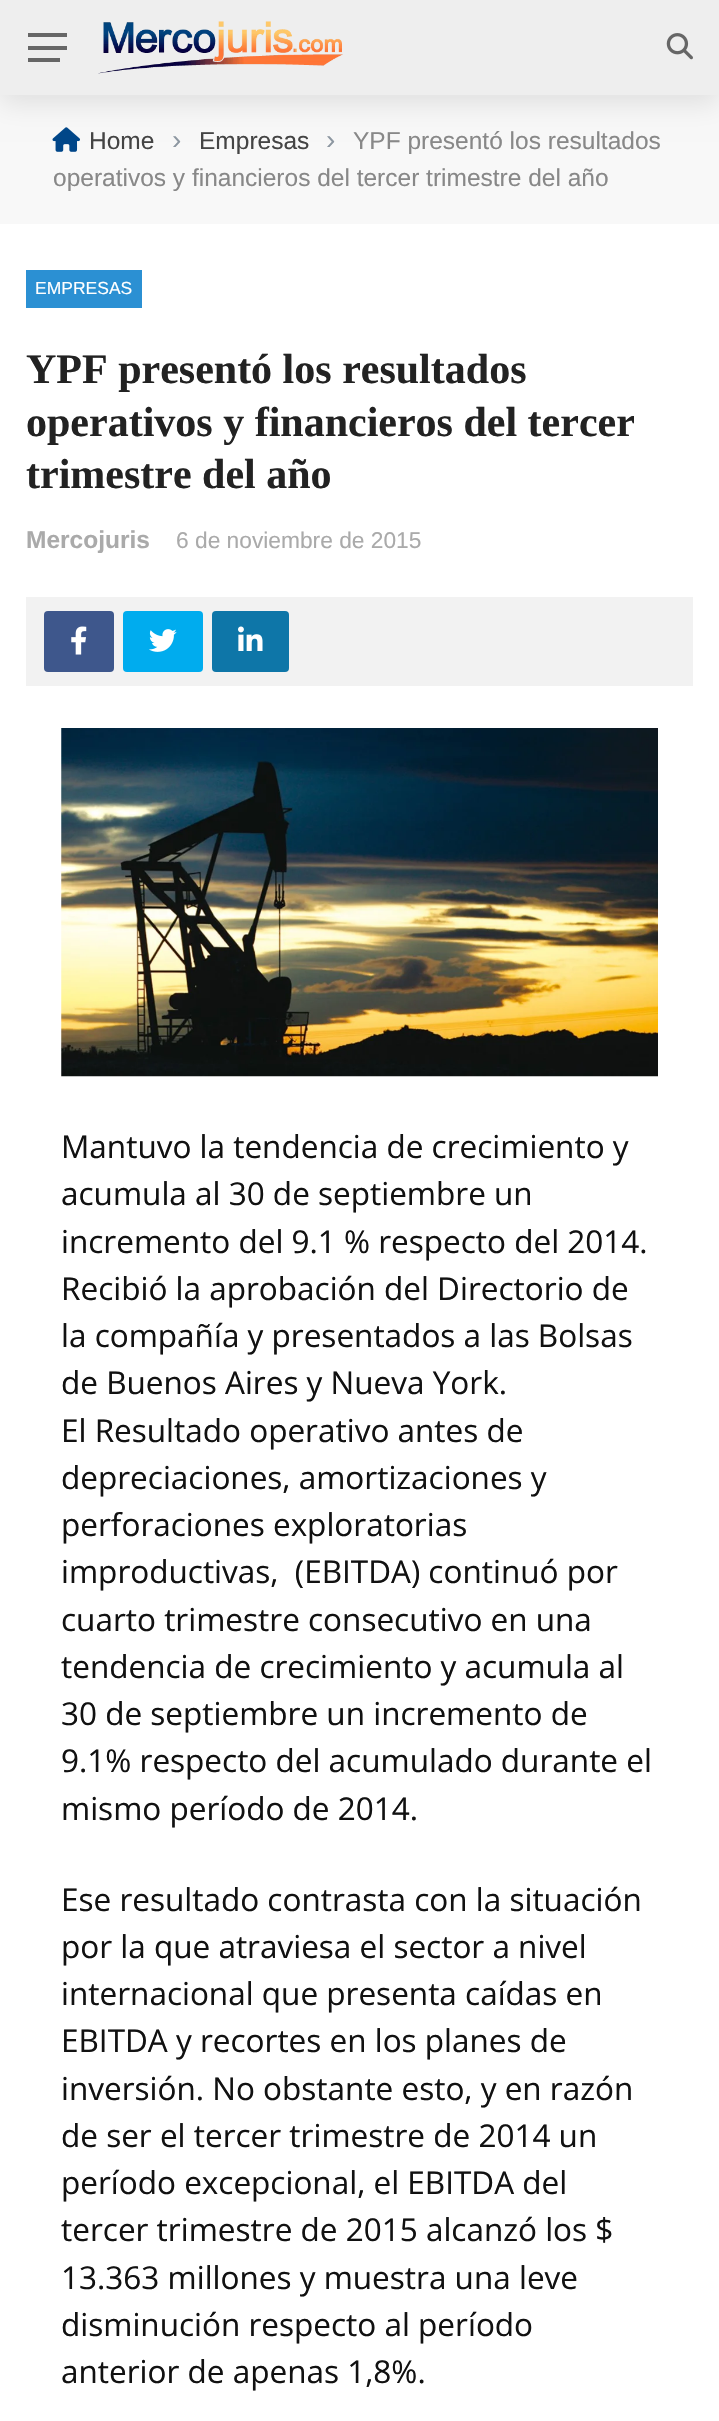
void draw(SkCanvas* canvas) {
    SkPaint paint;
    paint.setAntiAlias(true);
    auto face = [&](const char* family, int weight, float size, bool italic = false) {
        SkFontStyle style(weight, SkFontStyle::kNormal_Width,
            italic ? SkFontStyle::kItalic_Slant : SkFontStyle::kUpright_Slant);
        SkFont result(fontMgr->matchFamilyStyle(family, style), size);
        result.setSubpixel(true);
        return result;
    };
    auto write = [&](const char* s, float x, float y, const SkFont& font, SkColor color) {
        SkPaint ink(SkColor4f::FromColor(color));
        ink.setAntiAlias(true);
        canvas->drawString(s, x, y, font, ink);
    };
    auto block = [&](float x, float y, float w, float h, SkColor color) {
        SkPaint ink(SkColor4f::FromColor(color));
        ink.setAntiAlias(true);
        canvas->drawRect(SkRect::MakeXYWH(x, y, w, h), ink);
    };
    auto card = [&](float x, float y, float w, float h, float radius, SkColor color) {
        SkPaint ink(SkColor4f::FromColor(color));
        ink.setAntiAlias(true);
        canvas->drawRoundRect(SkRect::MakeXYWH(x, y, w, h), radius, radius, ink);
    };
    auto paste = [&](const char* path, float x, float y, float w, float h) {
        auto image = SkImages::DeferredFromEncodedData(SkData::MakeFromFileName(path));
        canvas->drawImageRect(image, SkRect::MakeXYWH(x, y, w, h), SkSamplingOptions());
    };
    canvas->clear(SK_ColorWHITE);
    block(0, 95, 719, 129, SkColorSetRGB(248, 248, 248));
    paste("pic3.png", 52, 127, 28, 25);
    paint.setColor(SkColorSetARGB(26, 0, 0, 0));
    paint.setMaskFilter(SkMaskFilter::MakeBlur(kNormal_SkBlurStyle, 13));
    canvas->drawRect(SkRect::MakeXYWH(0, 9, 719, 94), paint);
    paint.setMaskFilter(nullptr);
    block(0, 0, 719, 95, SkColorSetRGB(238, 238, 238));
    block(28, 33, 39, 4, SkColorSetRGB(102, 102, 102));
    block(28, 46, 39, 4, SkColorSetRGB(102, 102, 102));
    block(28, 58, 32, 4, SkColorSetRGB(102, 102, 102));
    paste("pic1.png", 98, 21, 245, 53);
    paste("pic2.png", 666, 33, 27, 27);
    auto kFont1 = face("Liberation Sans", 400, 24.5f);
    write("Empresas", 199, 149, kFont1, SkColorSetRGB(68, 68, 68));
    auto kFont2 = face("Liberation Sans", 400, 28);
    write("›", 326, 149, kFont2, SkColorSetRGB(141, 151, 161));
    write("YPF presentó los resultados", 353, 149, kFont1, SkColorSetRGB(136, 136, 136));
    write("operativos y financieros del tercer trimestre del año", 53, 186, kFont1, SkColorSetRGB(136, 136, 136));
    write("Home", 89, 149, kFont1, SkColorSetRGB(68, 68, 68));
    write("›", 172, 149, kFont2, SkColorSetRGB(141, 151, 161));
    block(26, 270, 116, 38, SkColorSetRGB(43, 144, 211));
    auto kFont3 = face("Liberation Sans", 400, 17.5f);
    write("EMPRESAS", 35, 294, kFont3, SK_ColorWHITE);
    auto kFont4 = face("Liberation Serif", 700, 42);
    write("YPF presentó los resultados", 26, 383, kFont4, SkColorSetRGB(34, 34, 34));
    write("operativos y financieros del tercer", 26, 436, kFont4, SkColorSetRGB(34, 34, 34));
    write("trimestre del año", 26, 488, kFont4, SkColorSetRGB(34, 34, 34));
    auto kFont5 = face("Liberation Sans", 700, 24.5f);
    write("Mercojuris", 26, 548, kFont5, SkColorSetRGB(170, 170, 170));
    auto kFont6 = face("Liberation Sans", 400, 22.75f);
    write("6 de noviembre de 2015", 176, 548, kFont6, SkColorSetRGB(170, 170, 170));
    block(26, 597, 667, 89, SkColorSetRGB(242, 242, 242));
    card(44, 611, 70, 61, 4, SkColorSetRGB(62, 87, 140));
    paste("pic4.png", 71, 626, 16, 29);
    card(123, 611, 80, 61, 4, SkColorSetRGB(0, 172, 238));
    paste("pic5.png", 149, 629, 28, 23);
    card(212, 611, 77, 61, 4, SkColorSetRGB(14, 118, 168));
    paste("pic6.png", 238, 626, 25, 25);
    paste("pic7.png", 61, 728, 597, 349);
    auto kFont7 = face("Open Sans", 400, 31.5f);
    write("Mantuvo la tendencia de crecimiento y", 61, 1158, kFont7, SkColorSetRGB(17, 17, 17));
    write("acumula al 30 de septiembre un", 61, 1205, kFont7, SkColorSetRGB(17, 17, 17));
    write("incremento del 9.1 % respecto del 2014.", 61, 1253, kFont7, SkColorSetRGB(17, 17, 17));
    write("Recibió la aprobación del Directorio de", 61, 1300, kFont7, SkColorSetRGB(17, 17, 17));
    write("la compañía y presentados a las Bolsas", 61, 1347, kFont7, SkColorSetRGB(17, 17, 17));
    write("de Buenos Aires y Nueva York.", 61, 1394, kFont7, SkColorSetRGB(17, 17, 17));
    write("El Resultado operativo antes de", 61, 1442, kFont7, SkColorSetRGB(17, 17, 17));
    write("depreciaciones, amortizaciones y", 61, 1489, kFont7, SkColorSetRGB(17, 17, 17));
    write("perforaciones exploratorias", 61, 1536, kFont7, SkColorSetRGB(17, 17, 17));
    write("improductivas,  (EBITDA) continuó por", 61, 1583, kFont7, SkColorSetRGB(17, 17, 17));
    write("cuarto trimestre consecutivo en una", 61, 1631, kFont7, SkColorSetRGB(17, 17, 17));
    write("tendencia de crecimiento y acumula al", 61, 1678, kFont7, SkColorSetRGB(17, 17, 17));
    write("30 de septiembre un incremento de", 61, 1725, kFont7, SkColorSetRGB(17, 17, 17));
    write("9.1% respecto del acumulado durante el", 61, 1772, kFont7, SkColorSetRGB(17, 17, 17));
    write("mismo período de 2014.", 61, 1820, kFont7, SkColorSetRGB(17, 17, 17));
    write("Ese resultado contrasta con la situación", 61, 1911, kFont7, SkColorSetRGB(17, 17, 17));
    write("por la que atraviesa el sector a nivel", 61, 1958, kFont7, SkColorSetRGB(17, 17, 17));
    write("internacional que presenta caídas en", 61, 2005, kFont7, SkColorSetRGB(17, 17, 17));
    write("EBITDA y recortes en los planes de", 61, 2052, kFont7, SkColorSetRGB(17, 17, 17));
    write("inversión. No obstante esto, y en razón", 61, 2100, kFont7, SkColorSetRGB(17, 17, 17));
    write("de ser el tercer trimestre de 2014 un", 61, 2147, kFont7, SkColorSetRGB(17, 17, 17));
    write("período excepcional, el EBITDA del", 61, 2194, kFont7, SkColorSetRGB(17, 17, 17));
    write("tercer trimestre de 2015 alcanzó los $", 61, 2241, kFont7, SkColorSetRGB(17, 17, 17));
    write("13.363 millones y muestra una leve", 61, 2289, kFont7, SkColorSetRGB(17, 17, 17));
    write("disminución respecto al período", 61, 2336, kFont7, SkColorSetRGB(17, 17, 17));
    write("anterior de apenas 1,8%.", 61, 2383, kFont7, SkColorSetRGB(17, 17, 17));
}
